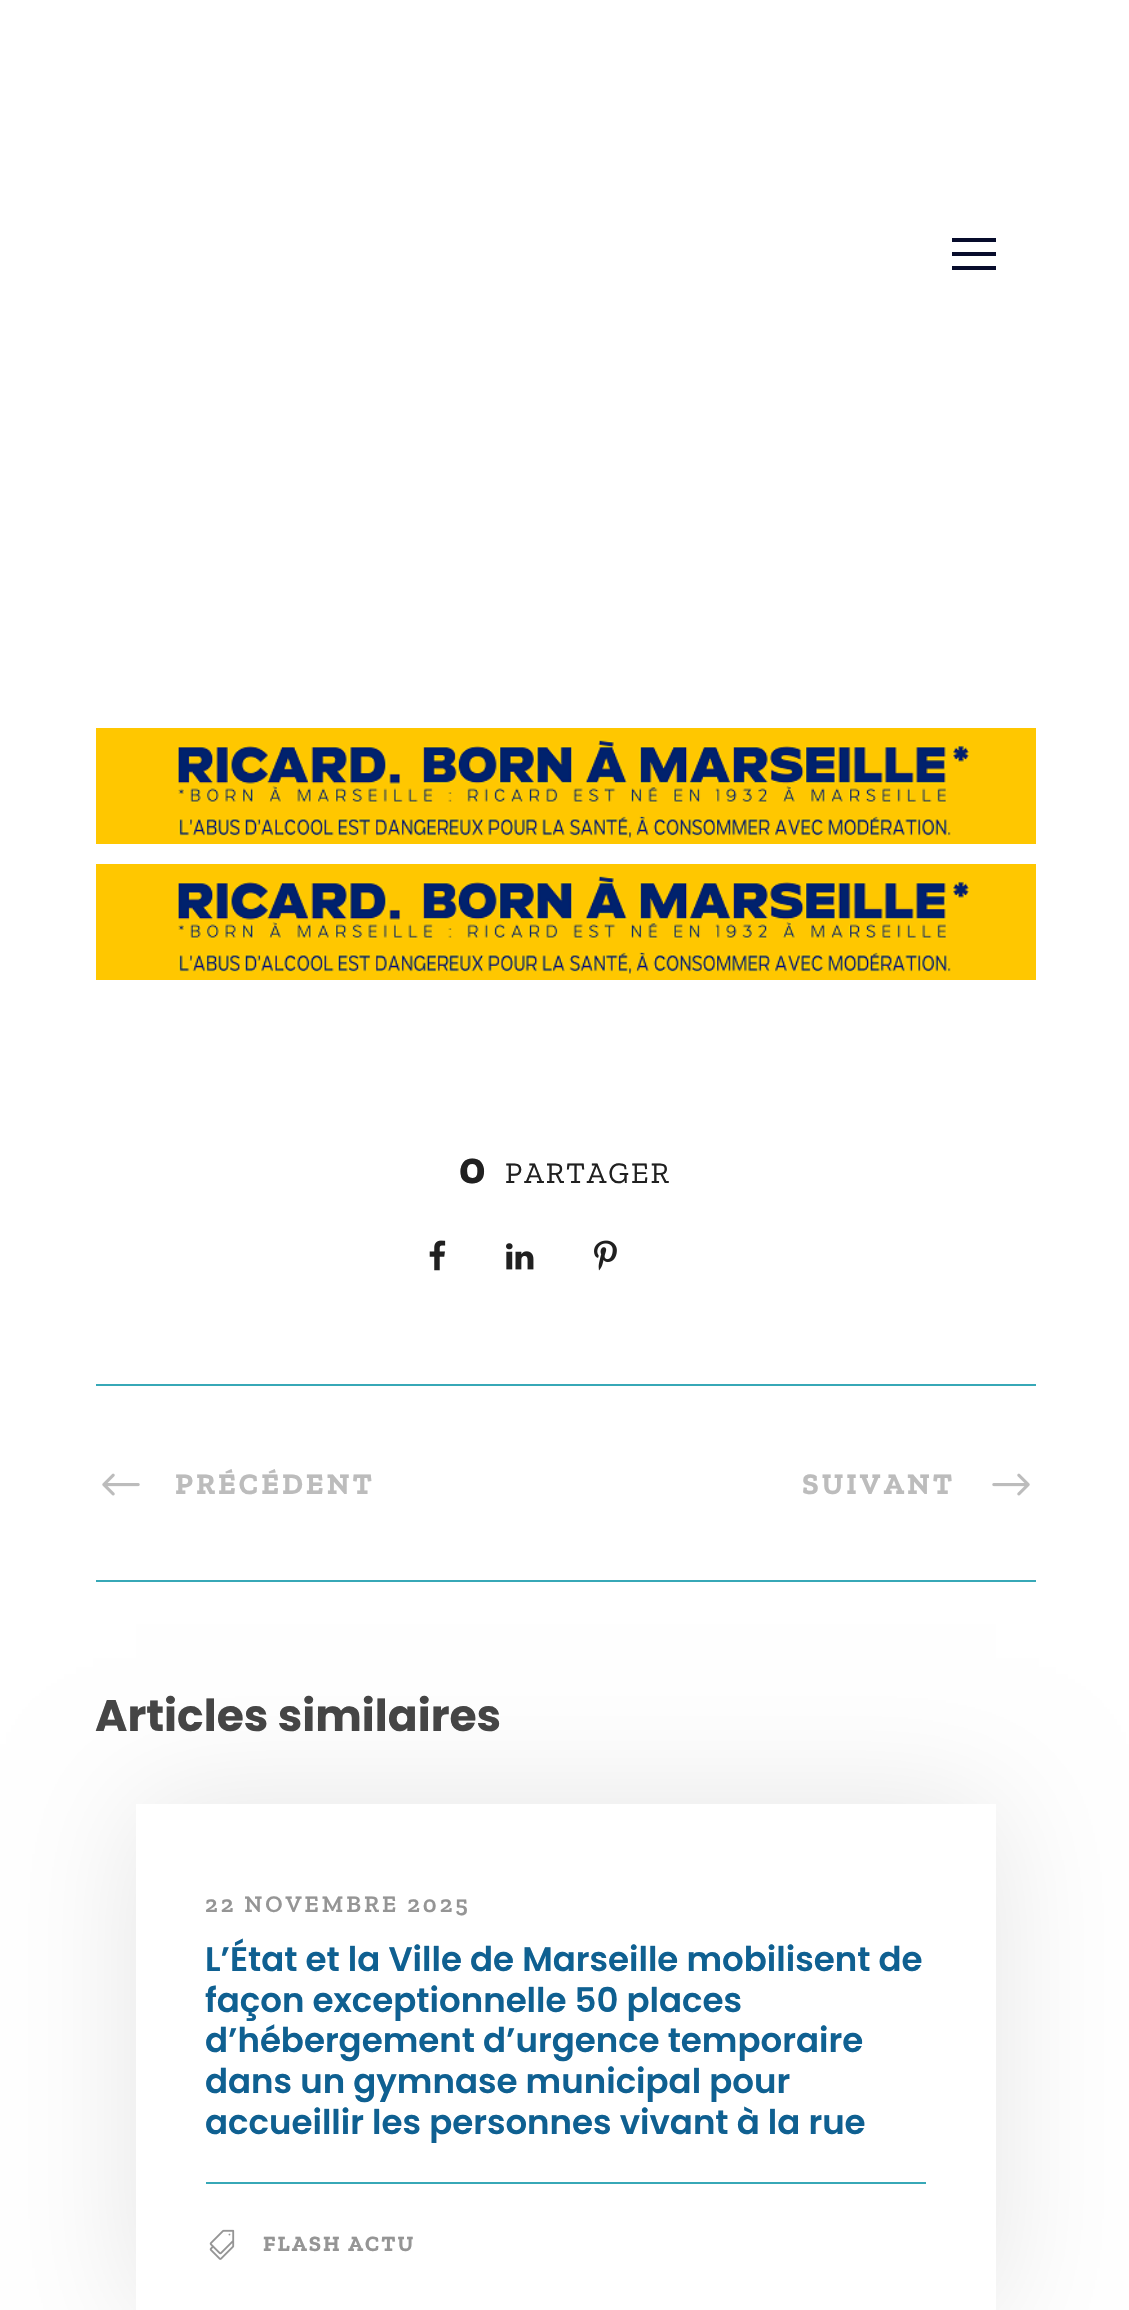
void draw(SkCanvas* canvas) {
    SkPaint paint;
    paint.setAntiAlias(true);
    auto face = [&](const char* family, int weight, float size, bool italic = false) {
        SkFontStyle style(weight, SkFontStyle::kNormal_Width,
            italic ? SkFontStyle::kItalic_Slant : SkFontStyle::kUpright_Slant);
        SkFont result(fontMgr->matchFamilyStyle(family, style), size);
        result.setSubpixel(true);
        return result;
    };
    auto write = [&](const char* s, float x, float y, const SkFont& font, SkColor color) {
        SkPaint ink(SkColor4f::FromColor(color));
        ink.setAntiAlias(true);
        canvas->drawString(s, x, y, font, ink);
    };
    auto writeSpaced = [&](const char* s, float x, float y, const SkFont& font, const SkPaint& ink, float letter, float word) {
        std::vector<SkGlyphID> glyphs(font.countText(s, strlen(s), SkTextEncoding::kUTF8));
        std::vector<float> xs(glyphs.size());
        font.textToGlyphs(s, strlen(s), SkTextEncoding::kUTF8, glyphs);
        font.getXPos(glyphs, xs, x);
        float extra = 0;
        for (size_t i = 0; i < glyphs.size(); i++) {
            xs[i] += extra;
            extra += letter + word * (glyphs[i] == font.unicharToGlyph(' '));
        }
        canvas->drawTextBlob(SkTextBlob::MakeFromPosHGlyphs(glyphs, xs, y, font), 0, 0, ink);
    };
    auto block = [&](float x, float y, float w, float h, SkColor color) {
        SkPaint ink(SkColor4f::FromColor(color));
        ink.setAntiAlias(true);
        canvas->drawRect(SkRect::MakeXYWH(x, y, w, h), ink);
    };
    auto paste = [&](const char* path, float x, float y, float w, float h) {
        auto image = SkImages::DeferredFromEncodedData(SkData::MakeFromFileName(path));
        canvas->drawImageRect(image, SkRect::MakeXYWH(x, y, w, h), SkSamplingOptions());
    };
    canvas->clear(SK_ColorWHITE);
    block(952, 238, 44, 4, SkColorSetRGB(7, 12, 43));
    block(952, 252, 44, 4, SkColorSetRGB(7, 12, 43));
    block(952, 266, 44, 4, SkColorSetRGB(7, 12, 43));
    paste("pic1.png", 96, 728, 940, 116);
    paste("pic1.png", 96, 864, 940, 116);
    auto kFont1 = face("Zilla Slab", 700, 46);
    write("0", 459, 1183, kFont1, SkColorSetRGB(32, 32, 32));
    auto kFont2 = face("Zilla Slab", 400, 30);
    paint.setColor(SkColorSetRGB(32, 32, 32));
    writeSpaced("PARTAGER", 505, 1183, kFont2, paint, 2, 0);
    paste("pic2.png", 429, 1240, 17, 31);
    paste("pic3.png", 506, 1243, 28, 27);
    paste("pic4.png", 594, 1240, 23, 31);
    block(96, 1384, 940, 2, SkColorSetRGB(55, 168, 183));
    block(96, 1580, 940, 2, SkColorSetRGB(55, 168, 183));
    paste("pic5.png", 102, 1473, 38, 23);
    auto kFont3 = face("Zilla Slab", 700, 30);
    paint.setColor(SkColorSetRGB(188, 188, 188));
    writeSpaced("PRÉCÉDENT", 175, 1494, kFont3, paint, 3, 0);
    writeSpaced("SUIVANT", 802, 1494, kFont3, paint, 3, 0);
    paste("pic6.png", 992, 1473, 38, 23);
    auto kFont4 = face("Poppins", 700, 44);
    write("Articles similaires", 95, 1731, kFont4, SkColorSetRGB(70, 70, 70));
    canvas->save();
    canvas->clipPath(SkPathBuilder(SkPathFillType::kEvenOdd).moveTo(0, 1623).lineTo(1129, 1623).lineTo(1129, 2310).lineTo(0, 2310).close().moveTo(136, 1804).lineTo(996, 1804).lineTo(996, 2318).lineTo(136, 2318).close().detach(), true);
    paint.setColor(SkColorSetARGB(26, 0, 0, 0));
    paint.setMaskFilter(SkMaskFilter::MakeBlur(kNormal_SkBlurStyle, 60));
    canvas->drawRect(SkRect::MakeXYWH(136, 1804, 860, 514), paint);
    paint.setMaskFilter(nullptr);
    canvas->restore();
    auto kFont5 = face("Zilla Slab", 600, 24);
    paint.setColor(SkColorSetRGB(149, 149, 149));
    writeSpaced("22 NOVEMBRE 2025", 205, 1912, kFont5, paint, 3, 0);
    auto kFont6 = face("Poppins", 600, 34);
    write("L’État et la Ville de Marseille mobilisent de", 205, 1971, kFont6, SkColorSetRGB(15, 96, 145));
    write("façon exceptionnelle 50 places", 205, 2012, kFont6, SkColorSetRGB(15, 96, 145));
    write("d’hébergement d’urgence temporaire", 205, 2052, kFont6, SkColorSetRGB(15, 96, 145));
    write("dans un gymnase municipal pour", 205, 2093, kFont6, SkColorSetRGB(15, 96, 145));
    write("accueillir les personnes vivant à la rue", 205, 2134, kFont6, SkColorSetRGB(15, 96, 145));
    block(206, 2182, 720, 2, SkColorSetRGB(55, 168, 183));
    paste("pic7.png", 209, 2229, 26, 31);
    auto kFont7 = face("Zilla Slab", 700, 22);
    writeSpaced("FLASH ACTU", 263, 2251, kFont7, paint, 2, 0);
}
